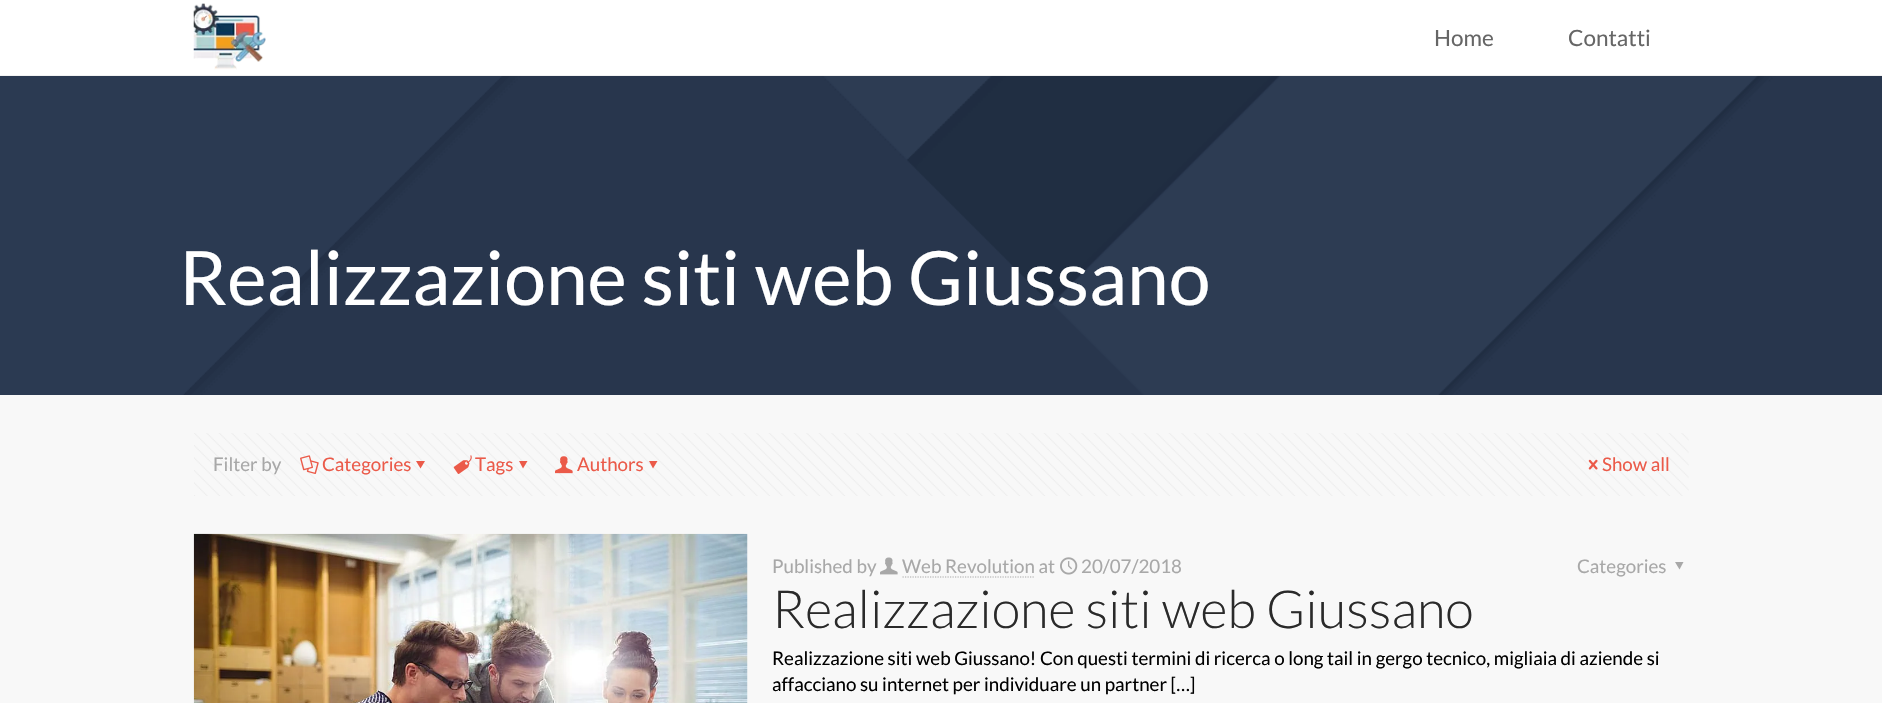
void draw(SkCanvas* canvas) {
    SkPaint paint;
    paint.setAntiAlias(true);
    auto face = [&](const char* family, int weight, float size, bool italic = false) {
        SkFontStyle style(weight, SkFontStyle::kNormal_Width,
            italic ? SkFontStyle::kItalic_Slant : SkFontStyle::kUpright_Slant);
        SkFont result(fontMgr->matchFamilyStyle(family, style), size);
        result.setSubpixel(true);
        return result;
    };
    auto write = [&](const char* s, float x, float y, const SkFont& font, SkColor color) {
        SkPaint ink(SkColor4f::FromColor(color));
        ink.setAntiAlias(true);
        canvas->drawString(s, x, y, font, ink);
    };
    auto block = [&](float x, float y, float w, float h, SkColor color) {
        SkPaint ink(SkColor4f::FromColor(color));
        ink.setAntiAlias(true);
        canvas->drawRect(SkRect::MakeXYWH(x, y, w, h), ink);
    };
    auto paste = [&](const char* path, float x, float y, float w, float h) {
        auto image = SkImages::DeferredFromEncodedData(SkData::MakeFromFileName(path));
        canvas->drawImageRect(image, SkRect::MakeXYWH(x, y, w, h), SkSamplingOptions());
    };
    canvas->clear(SkColorSetRGB(248, 248, 248));
    paste("pic1.png", 0, 76, 1882, 319);
    block(0, 0, 1882, 75, SK_ColorWHITE);
    block(0, 75, 1882, 1, SkColorSetRGB(242, 242, 242));
    paste("pic2.png", 193, 3, 73, 67);
    auto kFont1 = face("Lato", 400, 22.5f);
    write("Home", 1434, 46, kFont1, SkColorSetRGB(102, 102, 102));
    write("Contatti", 1568, 46, kFont1, SkColorSetRGB(102, 102, 102));
    auto kFont2 = face("Lato", 400, 75);
    write("Realizzazione siti web Giussano", 179, 305, kFont2, SK_ColorWHITE);
    paste("pic3.png", 194, 433, 1495, 63);
    auto kFont3 = face("Lato", 400, 18.75f);
    write("Filter by", 213, 471, kFont3, SkColorSetRGB(168, 168, 168));
    paste("pic4.png", 300, 455, 19, 19);
    write("Categories", 322, 471, kFont3, SkColorSetRGB(235, 90, 73));
    paint.setColor(SkColorSetRGB(235, 90, 73));
    canvas->drawPath(SkPathBuilder().moveTo(425, 461).lineTo(420.5f, 468.5f).lineTo(416, 461).close().detach(), paint);
    paste("pic5.png", 453, 455, 19, 19);
    write("Tags", 475, 471, kFont3, SkColorSetRGB(235, 90, 73));
    canvas->drawPath(SkPathBuilder().moveTo(527.5f, 461).lineTo(523, 468.5f).lineTo(519, 461).close().detach(), paint);
    paste("pic6.png", 555, 456, 18, 18);
    write("Authors", 577, 471, kFont3, SkColorSetRGB(235, 90, 73));
    canvas->drawPath(SkPathBuilder().moveTo(657.5f, 461).lineTo(653, 468.5f).lineTo(649, 461).close().detach(), paint);
    paste("pic7.png", 1588, 459, 10, 11);
    write("Show all", 1602, 471, kFont3, SkColorSetRGB(235, 90, 73));
    paste("pic8.png", 193, 533, 555, 170);
    write("Published by", 772, 573, kFont3, SkColorSetRGB(168, 168, 168));
    paste("pic9.png", 880, 557, 18, 18);
    write("Web Revolution at", 902, 573, kFont3, SkColorSetRGB(168, 168, 168));
    paint.setStyle(SkPaint::kStroke_Style);
    paint.setStrokeWidth(1.2f);
    paint.setColor(SkColorSetRGB(168, 168, 168));
    paint.setPathEffect(SkDashPathEffect::Make({{1.25f, 1.25f}}, 0));
    canvas->drawPath(SkPathBuilder().moveTo(902.5f, 577).lineTo(1035, 577).detach(), paint);
    paint.setPathEffect(nullptr);
    paste("pic10.png", 1060, 557, 18, 18);
    write("20/07/2018", 1081, 573, kFont3, SkColorSetRGB(168, 168, 168));
    write("Categories", 1577, 573, kFont3, SkColorSetRGB(168, 168, 168));
    paint.setStyle(SkPaint::kFill_Style);
    canvas->drawPath(SkPathBuilder().moveTo(1683.5f, 562).lineTo(1679.5f, 569.5f).lineTo(1675, 562).close().detach(), paint);
    auto kFont4 = face("Lato", 300, 52.5f);
    write("Realizzazione siti web Giussano", 772, 628, kFont4, SkColorSetRGB(42, 42, 42));
    write("Realizzazione siti web Giussano! Con questi termini di ricerca o long tail in gergo tecnico, migliaia di aziende si", 772, 665, kFont3, SK_ColorBLACK);
    write("affacciano su internet per individuare un partner […]", 772, 691, kFont3, SK_ColorBLACK);
}
